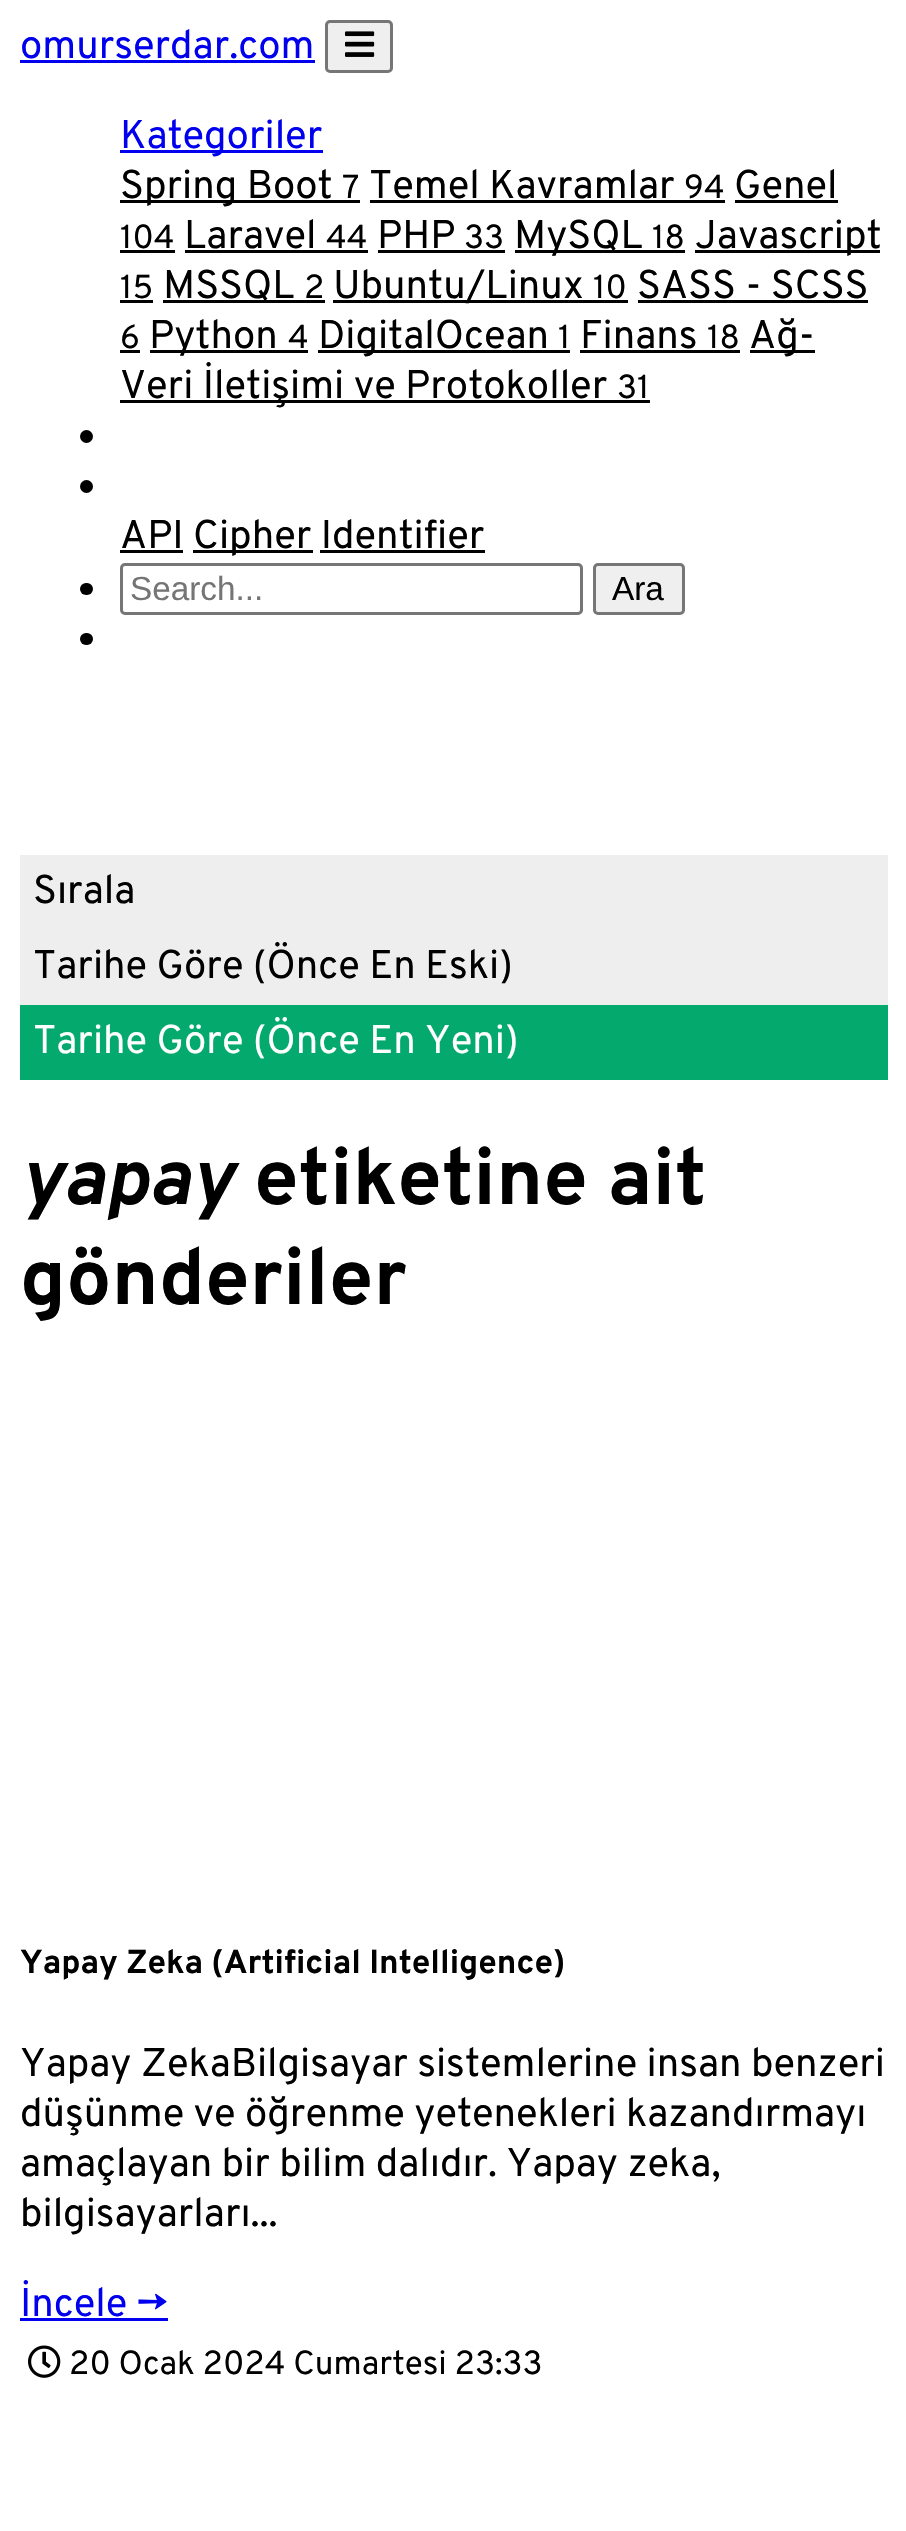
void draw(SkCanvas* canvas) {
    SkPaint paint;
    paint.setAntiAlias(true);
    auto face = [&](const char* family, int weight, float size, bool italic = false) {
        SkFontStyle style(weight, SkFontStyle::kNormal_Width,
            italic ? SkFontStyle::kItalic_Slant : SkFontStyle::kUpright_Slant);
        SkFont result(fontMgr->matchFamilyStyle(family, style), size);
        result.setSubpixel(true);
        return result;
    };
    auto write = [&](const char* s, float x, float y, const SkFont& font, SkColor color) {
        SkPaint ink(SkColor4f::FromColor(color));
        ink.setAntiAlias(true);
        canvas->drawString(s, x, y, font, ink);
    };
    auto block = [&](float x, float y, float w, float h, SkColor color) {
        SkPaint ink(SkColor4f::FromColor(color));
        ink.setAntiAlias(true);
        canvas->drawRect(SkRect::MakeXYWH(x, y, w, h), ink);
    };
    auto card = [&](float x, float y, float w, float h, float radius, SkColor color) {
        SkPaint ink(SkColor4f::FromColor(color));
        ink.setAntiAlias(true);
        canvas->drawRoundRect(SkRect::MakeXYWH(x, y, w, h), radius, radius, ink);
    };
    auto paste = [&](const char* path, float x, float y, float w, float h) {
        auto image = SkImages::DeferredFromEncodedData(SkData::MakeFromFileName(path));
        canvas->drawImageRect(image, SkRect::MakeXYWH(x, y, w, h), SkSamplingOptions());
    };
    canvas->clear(SK_ColorWHITE);
    auto kFont1 = face("Overpass", 400, 40);
    write("omurserdar.com", 20, 58, kFont1, SkColorSetRGB(0, 0, 238));
    block(20, 60, 295, 3, SkColorSetRGB(0, 0, 238));
    paint.setColor(SkColorSetRGB(239, 239, 239));
    canvas->drawRoundRect(SkRect::MakeXYWH(326.5f, 21.5f, 65, 50), 3.5f, 3.5f, paint);
    paint.setStyle(SkPaint::kStroke_Style);
    paint.setStrokeWidth(3);
    paint.setColor(SkColorSetRGB(118, 118, 118));
    canvas->drawRoundRect(SkRect::MakeXYWH(326.5f, 21.5f, 65, 50), 3.5f, 3.5f, paint);
    paste("pic1.png", 345, 31, 30, 26);
    block(120, 150, 203, 3, SkColorSetRGB(0, 0, 238));
    write("Kategoriler", 120, 148, kFont1, SkColorSetRGB(0, 0, 238));
    block(120, 200, 240, 3, SK_ColorBLACK);
    write("Spring Boot", 120, 198, kFont1, SK_ColorBLACK);
    auto kFont2 = face("Overpass", 400, 33.3f);
    write("7", 342, 198, kFont2, SK_ColorBLACK);
    write("Temel Kavramlar", 369, 198, kFont1, SK_ColorBLACK);
    write("94", 684, 198, kFont2, SK_ColorBLACK);
    block(370, 200, 355, 3, SK_ColorBLACK);
    write("Genel", 734, 198, kFont1, SK_ColorBLACK);
    block(735, 200, 103, 3, SK_ColorBLACK);
    write("104", 120, 248, kFont2, SK_ColorBLACK);
    block(120, 250, 55, 3, SK_ColorBLACK);
    write("Laravel", 184, 248, kFont1, SK_ColorBLACK);
    write("44", 326, 248, kFont2, SK_ColorBLACK);
    block(185, 250, 183, 3, SK_ColorBLACK);
    write("PHP", 377, 248, kFont1, SK_ColorBLACK);
    write("33", 464, 248, kFont2, SK_ColorBLACK);
    block(378, 250, 127, 3, SK_ColorBLACK);
    block(515, 250, 170, 3, SK_ColorBLACK);
    write("MySQL", 514, 248, kFont1, SK_ColorBLACK);
    write("18", 652, 248, kFont2, SK_ColorBLACK);
    block(695, 250, 185, 3, SK_ColorBLACK);
    write("Javascript", 695, 248, kFont1, SK_ColorBLACK);
    write("15", 120, 298, kFont2, SK_ColorBLACK);
    block(120, 300, 33, 3, SK_ColorBLACK);
    block(163, 300, 162, 3, SK_ColorBLACK);
    write("MSSQL", 163, 298, kFont1, SK_ColorBLACK);
    write("2", 304, 298, kFont2, SK_ColorBLACK);
    block(333, 300, 295, 3, SK_ColorBLACK);
    write("Ubuntu/Linux", 333, 298, kFont1, SK_ColorBLACK);
    write("10", 593, 298, kFont2, SK_ColorBLACK);
    write("SASS - SCSS", 637, 298, kFont1, SK_ColorBLACK);
    block(638, 300, 230, 3, SK_ColorBLACK);
    write("6", 120, 348, kFont2, SK_ColorBLACK);
    block(120, 350, 20, 3, SK_ColorBLACK);
    block(150, 350, 158, 3, SK_ColorBLACK);
    write("Python", 149, 348, kFont1, SK_ColorBLACK);
    write("4", 288, 348, kFont2, SK_ColorBLACK);
    block(318, 350, 252, 3, SK_ColorBLACK);
    write("DigitalOcean", 318, 348, kFont1, SK_ColorBLACK);
    write("1", 558, 348, kFont2, SK_ColorBLACK);
    write("Finans", 580, 348, kFont1, SK_ColorBLACK);
    write("18", 707, 348, kFont2, SK_ColorBLACK);
    block(580, 350, 160, 3, SK_ColorBLACK);
    block(750, 350, 65, 3, SK_ColorBLACK);
    write("Ağ-", 749, 348, kFont1, SK_ColorBLACK);
    block(120, 400, 530, 3, SK_ColorBLACK);
    write("Veri İletişimi ve Protokoller", 120, 398, kFont1, SK_ColorBLACK);
    write("31", 617, 398, kFont2, SK_ColorBLACK);
    paint.setStyle(SkPaint::kFill_Style);
    paint.setColor(SK_ColorBLACK);
    canvas->drawCircle(86.5f, 436.5f, 6.5f, paint);
    canvas->drawCircle(86.5f, 486.5f, 6.5f, paint);
    write("API", 120, 548, kFont1, SK_ColorBLACK);
    block(120, 550, 63, 3, SK_ColorBLACK);
    block(193, 550, 120, 3, SK_ColorBLACK);
    write("Cipher Identifier", 193, 548, kFont1, SK_ColorBLACK);
    block(320, 550, 165, 3, SK_ColorBLACK);
    card(80, 583, 13, 12, 6, SK_ColorBLACK);
    paint.setStyle(SkPaint::kStroke_Style);
    paint.setColor(SkColorSetRGB(118, 118, 118));
    canvas->drawRoundRect(SkRect::MakeXYWH(121.5f, 564.5f, 460, 49), 3.5f, 3.5f, paint);
    auto kFont3 = face("Liberation Sans", 400, 33.3f);
    write("Search...", 130, 600, kFont3, SkColorSetRGB(117, 117, 117));
    paint.setStyle(SkPaint::kFill_Style);
    paint.setColor(SkColorSetRGB(239, 239, 239));
    canvas->drawRoundRect(SkRect::MakeXYWH(594.5f, 564.5f, 89, 49), 3.5f, 3.5f, paint);
    paint.setStyle(SkPaint::kStroke_Style);
    paint.setColor(SkColorSetRGB(118, 118, 118));
    canvas->drawRoundRect(SkRect::MakeXYWH(594.5f, 564.5f, 89, 49), 3.5f, 3.5f, paint);
    write("Ara", 612, 600, kFont3, SK_ColorBLACK);
    card(80, 633, 13, 12, 6, SK_ColorBLACK);
    block(20, 855, 868, 150, SkColorSetRGB(238, 238, 238));
    write("Sırala", 33, 903, kFont1, SK_ColorBLACK);
    write("Tarihe Göre (Önce En Eski)", 33, 978, kFont1, SK_ColorBLACK);
    block(20, 1005, 868, 75, SkColorSetRGB(4, 170, 109));
    write("Tarihe Göre (Önce En Yeni)", 33, 1053, kFont1, SK_ColorWHITE);
    auto kFont4 = face("Overpass", 700, 80, true);
    write("yapay", 20, 1204, kFont4, SK_ColorBLACK);
    auto kFont5 = face("Overpass", 700, 80);
    write("etiketine ait", 254, 1204, kFont5, SK_ColorBLACK);
    write("gönderiler", 20, 1304, kFont5, SK_ColorBLACK);
    auto kFont6 = face("Overpass", 700, 33.25f);
    write("Yapay Zeka (Artificial Intelligence)", 20, 1973, kFont6, SK_ColorBLACK);
    write("Yapay ZekaBilgisayar sistemlerine insan benzeri", 20, 2076, kFont1, SK_ColorBLACK);
    write("düşünme ve öğrenme yetenekleri kazandırmayı", 20, 2126, kFont1, SK_ColorBLACK);
    write("amaçlayan bir bilim dalıdır. Yapay zeka,", 20, 2176, kFont1, SK_ColorBLACK);
    write("bilgisayarları...", 20, 2226, kFont1, SK_ColorBLACK);
    write("İncele →", 20, 2316, kFont1, SkColorSetRGB(0, 0, 238));
    block(20, 2318, 148, 3, SkColorSetRGB(0, 0, 238));
    paste("pic2.png", 28, 2345, 33, 33);
    write("20 Ocak 2024 Cumartesi 23:33", 69, 2374, kFont2, SK_ColorBLACK);
}
